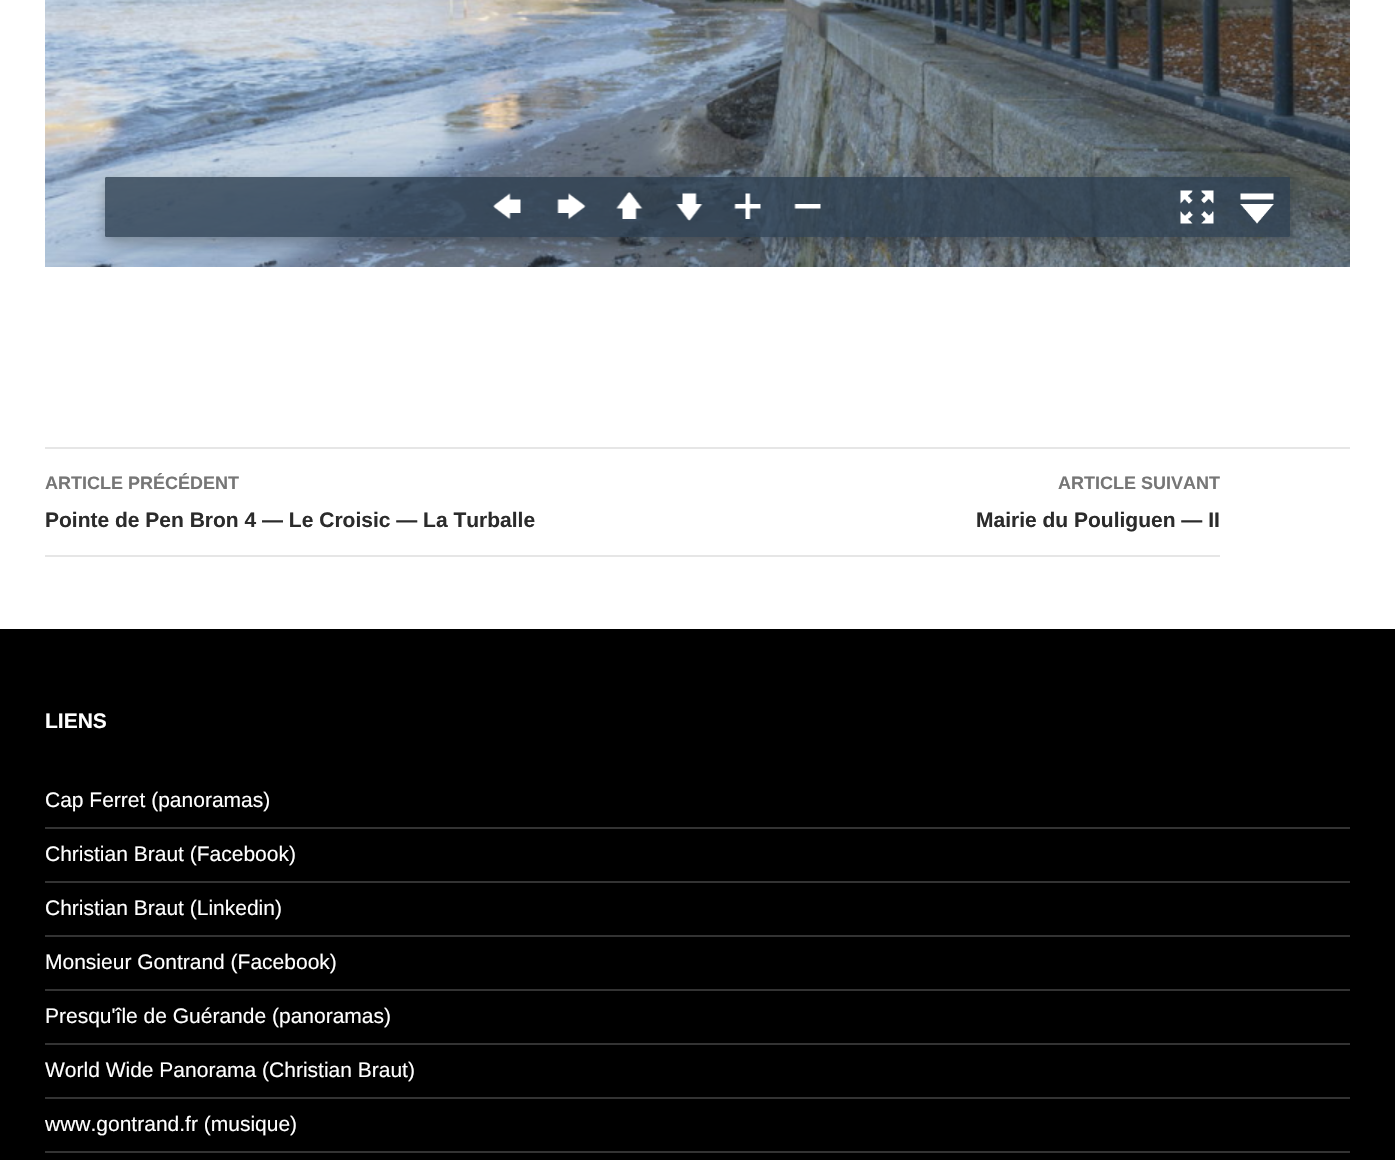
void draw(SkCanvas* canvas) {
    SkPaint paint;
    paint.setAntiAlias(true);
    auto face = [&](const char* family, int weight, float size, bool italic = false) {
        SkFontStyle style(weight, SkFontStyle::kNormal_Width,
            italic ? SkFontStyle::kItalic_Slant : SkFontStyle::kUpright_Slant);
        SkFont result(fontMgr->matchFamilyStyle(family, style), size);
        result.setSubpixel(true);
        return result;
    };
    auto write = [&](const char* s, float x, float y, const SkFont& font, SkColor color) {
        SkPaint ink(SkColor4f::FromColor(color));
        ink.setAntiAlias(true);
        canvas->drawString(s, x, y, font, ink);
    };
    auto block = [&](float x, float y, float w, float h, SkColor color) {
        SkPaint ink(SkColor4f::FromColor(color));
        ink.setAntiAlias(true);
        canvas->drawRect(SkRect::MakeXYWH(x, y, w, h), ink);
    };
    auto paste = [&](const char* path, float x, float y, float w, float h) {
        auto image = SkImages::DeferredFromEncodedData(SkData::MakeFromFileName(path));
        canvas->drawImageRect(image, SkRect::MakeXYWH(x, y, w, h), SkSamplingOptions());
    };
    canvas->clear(SK_ColorWHITE);
    paste("pic1.png", 45, 0, 1305, 267);
    block(45, 447, 1305, 2, SkColorSetRGB(230, 230, 230));
    block(45, 555, 1175, 2, SkColorSetRGB(230, 230, 230));
    canvas->save();
    canvas->clipRect(SkRect::MakeXYWH(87, 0, 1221, 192));
    canvas->clipPath(SkPathBuilder(SkPathFillType::kEvenOdd).moveTo(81, 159).lineTo(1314, 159).lineTo(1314, 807).lineTo(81, 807).close().moveTo(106.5f, 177).lineTo(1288.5f, 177).cubicTo(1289.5f, 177, 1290, 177.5f, 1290, 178.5f).lineTo(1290, 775.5f).cubicTo(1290, 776.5f, 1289.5f, 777, 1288.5f, 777).lineTo(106.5f, 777).cubicTo(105.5f, 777, 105, 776.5f, 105, 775.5f).lineTo(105, 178.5f).cubicTo(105, 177.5f, 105.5f, 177, 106.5f, 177).close().detach(), true);
    paint.setColor(SkColorSetARGB(77, 0, 0, 0));
    paint.setMaskFilter(SkMaskFilter::MakeBlur(kNormal_SkBlurStyle, 7.5f));
    canvas->drawRoundRect(SkRect::MakeXYWH(105, 183, 1185, 600), 1.5f, 1.5f, paint);
    paint.setMaskFilter(nullptr);
    canvas->restore();
    paint.setColor(SkColorSetARGB(204, 45, 62, 80));
    canvas->drawPath(SkPathBuilder().moveTo(106.5f, 177).lineTo(1288.5f, 177).cubicTo(1289.5f, 177, 1290, 177.5f, 1290, 178.5f).lineTo(1290, 192).lineTo(105, 192).lineTo(105, 178.5f).cubicTo(105, 177.5f, 105.5f, 177, 106.5f, 177).close().detach(), paint);
    canvas->save();
    canvas->clipRect(SkRect::MakeXYWH(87, 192, 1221, 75));
    canvas->clipPath(SkPathBuilder(SkPathFillType::kEvenOdd).moveTo(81, 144).lineTo(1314, 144).lineTo(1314, 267).lineTo(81, 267).close().moveTo(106.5f, 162).lineTo(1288.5f, 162).cubicTo(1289.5f, 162, 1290, 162.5f, 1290, 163.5f).lineTo(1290, 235.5f).cubicTo(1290, 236.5f, 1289.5f, 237, 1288.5f, 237).lineTo(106.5f, 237).cubicTo(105.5f, 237, 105, 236.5f, 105, 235.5f).lineTo(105, 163.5f).cubicTo(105, 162.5f, 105.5f, 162, 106.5f, 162).close().detach(), true);
    paint.setColor(SkColorSetARGB(77, 0, 0, 0));
    paint.setMaskFilter(SkMaskFilter::MakeBlur(kNormal_SkBlurStyle, 7.5f));
    canvas->drawRoundRect(SkRect::MakeXYWH(105, 168, 1185, 75), 1.5f, 1.5f, paint);
    paint.setMaskFilter(nullptr);
    canvas->restore();
    paint.setColor(SkColorSetARGB(204, 45, 62, 80));
    canvas->drawPath(SkPathBuilder().moveTo(105, 192).lineTo(1290, 192).lineTo(1290, 235.5f).cubicTo(1290, 236.5f, 1289.5f, 237, 1288.5f, 237).lineTo(106.5f, 237).cubicTo(105.5f, 237, 105, 236.5f, 105, 235.5f).close().detach(), paint);
    paste("pic2.png", 493, 193, 28, 27);
    paste("pic3.png", 557, 193, 29, 27);
    paste("pic4.png", 616, 192, 27, 27);
    paste("pic5.png", 675, 193, 28, 28);
    paste("pic6.png", 734, 193, 27, 26);
    paste("pic7.png", 794, 204, 27, 5);
    paste("pic8.png", 1180, 190, 34, 34);
    paste("pic9.png", 1240, 193, 34, 31);
    auto kFont1 = face("Liberation Sans", 700, 18);
    write("ARTICLE PRÉCÉDENT", 45, 489, kFont1, SkColorSetRGB(118, 118, 118));
    auto kFont2 = face("Liberation Sans", 700, 21);
    write("Pointe de Pen Bron 4 — Le Croisic — La Turballe", 45, 527, kFont2, SkColorSetRGB(43, 43, 43));
    write("ARTICLE SUIVANT", 1058, 489, kFont1, SkColorSetRGB(118, 118, 118));
    write("Mairie du Pouliguen — II", 976, 527, kFont2, SkColorSetRGB(43, 43, 43));
    block(0, 629, 1395, 531, SK_ColorBLACK);
    write("LIENS", 45, 728, kFont2, SK_ColorWHITE);
    auto kFont3 = face("Liberation Sans", 400, 21);
    write("Cap Ferret (panoramas)", 45, 807, kFont3, SK_ColorWHITE);
    block(45, 827, 1305, 2, SkColorSetRGB(51, 51, 51));
    write("Christian Braut (Facebook)", 45, 861, kFont3, SK_ColorWHITE);
    block(45, 881, 1305, 2, SkColorSetRGB(51, 51, 51));
    write("Christian Braut (Linkedin)", 45, 915, kFont3, SK_ColorWHITE);
    block(45, 935, 1305, 2, SkColorSetRGB(51, 51, 51));
    write("Monsieur Gontrand (Facebook)", 45, 969, kFont3, SK_ColorWHITE);
    block(45, 989, 1305, 2, SkColorSetRGB(51, 51, 51));
    write("Presqu'île de Guérande (panoramas)", 45, 1023, kFont3, SK_ColorWHITE);
    block(45, 1043, 1305, 2, SkColorSetRGB(51, 51, 51));
    write("World Wide Panorama (Christian Braut)", 45, 1077, kFont3, SK_ColorWHITE);
    block(45, 1097, 1305, 2, SkColorSetRGB(51, 51, 51));
    write("www.gontrand.fr (musique)", 45, 1131, kFont3, SK_ColorWHITE);
    block(45, 1151, 1305, 2, SkColorSetRGB(51, 51, 51));
}
